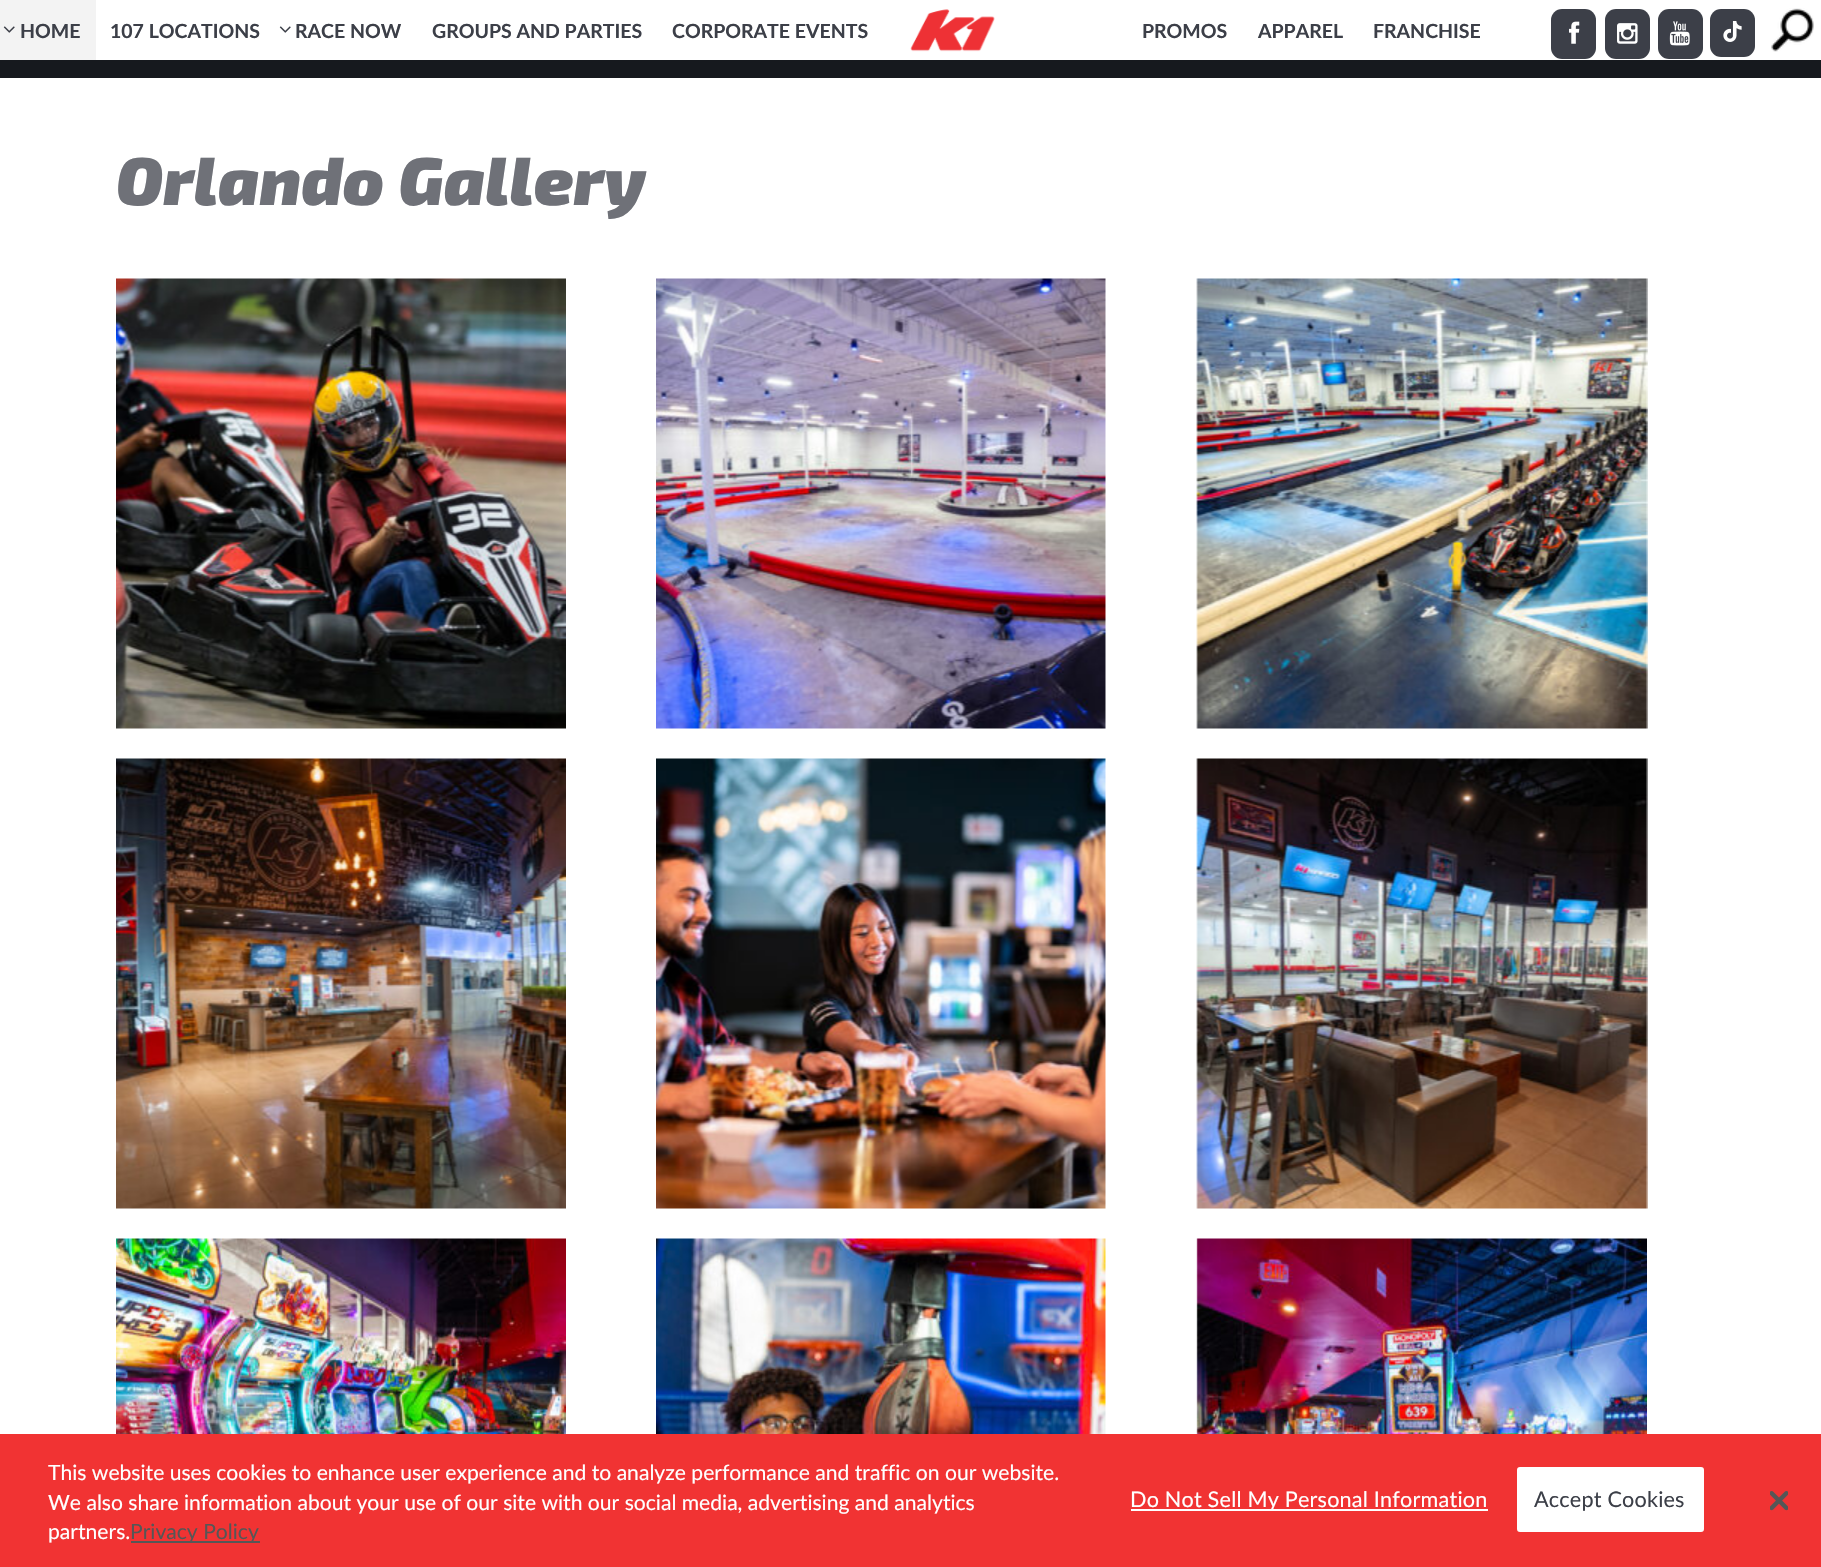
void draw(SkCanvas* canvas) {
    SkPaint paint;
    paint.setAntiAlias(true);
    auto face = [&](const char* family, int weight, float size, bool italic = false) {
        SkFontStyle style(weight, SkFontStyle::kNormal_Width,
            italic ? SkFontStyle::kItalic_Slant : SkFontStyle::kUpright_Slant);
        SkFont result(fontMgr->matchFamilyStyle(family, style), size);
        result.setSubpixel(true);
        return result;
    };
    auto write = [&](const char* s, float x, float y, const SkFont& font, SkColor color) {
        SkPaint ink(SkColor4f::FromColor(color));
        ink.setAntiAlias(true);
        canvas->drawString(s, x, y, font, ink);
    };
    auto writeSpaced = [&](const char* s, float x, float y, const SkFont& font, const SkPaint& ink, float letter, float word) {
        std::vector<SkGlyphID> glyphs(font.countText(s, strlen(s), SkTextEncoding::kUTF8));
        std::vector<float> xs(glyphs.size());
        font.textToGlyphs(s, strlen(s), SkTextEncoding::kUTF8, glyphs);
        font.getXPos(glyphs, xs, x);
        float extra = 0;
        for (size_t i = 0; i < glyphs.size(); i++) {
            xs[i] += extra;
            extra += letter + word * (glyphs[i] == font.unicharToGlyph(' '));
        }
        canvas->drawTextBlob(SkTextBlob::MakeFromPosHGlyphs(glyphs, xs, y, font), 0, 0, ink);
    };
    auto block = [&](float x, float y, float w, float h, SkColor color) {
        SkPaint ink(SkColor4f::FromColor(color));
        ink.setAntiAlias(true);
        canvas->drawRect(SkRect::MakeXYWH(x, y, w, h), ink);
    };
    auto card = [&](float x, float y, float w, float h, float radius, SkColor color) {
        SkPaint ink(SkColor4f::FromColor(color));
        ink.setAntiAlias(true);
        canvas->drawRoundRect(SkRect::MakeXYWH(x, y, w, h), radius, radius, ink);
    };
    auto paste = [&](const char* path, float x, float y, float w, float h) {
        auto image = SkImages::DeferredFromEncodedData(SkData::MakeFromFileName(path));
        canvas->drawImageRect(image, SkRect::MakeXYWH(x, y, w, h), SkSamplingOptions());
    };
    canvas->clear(SK_ColorWHITE);
    block(0, 0, 96, 60, SkColorSetRGB(243, 243, 243));
    paste("pic1.png", 3, 26, 12, 7);
    auto kFont1 = face("Lato", 700, 19.5f);
    write("HOME", 20, 38, kFont1, SkColorSetRGB(60, 63, 72));
    write("107 LOCATIONS", 110, 38, kFont1, SkColorSetRGB(60, 63, 72));
    paste("pic2.png", 279, 26, 12, 7);
    write("RACE NOW", 295, 38, kFont1, SkColorSetRGB(60, 63, 72));
    write("GROUPS AND PARTIES", 432, 38, kFont1, SkColorSetRGB(60, 63, 72));
    write("CORPORATE EVENTS", 672, 38, kFont1, SkColorSetRGB(60, 63, 72));
    paste("pic3.png", 910, 9, 85, 43);
    write("PROMOS", 1142, 38, kFont1, SkColorSetRGB(60, 63, 72));
    write("APPAREL", 1258, 38, kFont1, SkColorSetRGB(60, 63, 72));
    write("FRANCHISE", 1373, 38, kFont1, SkColorSetRGB(60, 63, 72));
    card(1551, 9, 45, 50, 11, SkColorSetRGB(60, 63, 72));
    paste("pic4.png", 1569, 21, 11, 23);
    card(1605, 9, 45, 50, 11, SkColorSetRGB(60, 63, 72));
    paste("pic5.png", 1617, 23, 21, 21);
    card(1658, 9, 45, 50, 11, SkColorSetRGB(60, 63, 72));
    paste("pic6.png", 1669, 21, 21, 25);
    card(1710, 9, 45, 48, 11, SkColorSetRGB(60, 63, 72));
    paste("pic7.png", 1723, 21, 19, 21);
    paste("pic8.png", 1771, 8, 43, 44);
    block(0, 60, 1821, 18, SkColorSetRGB(22, 25, 30));
    auto kFont2 = face("Exo 2", 900, 67.5f, true);
    write("Orlando Gallery", 116, 205, kFont2, SkColorSetRGB(111, 113, 120));
    paste("pic9.png", 116, 278, 450, 451);
    paste("pic10.png", 656, 278, 450, 451);
    paste("pic11.png", 1196, 278, 452, 451);
    paste("pic12.png", 116, 758, 450, 451);
    paste("pic13.png", 656, 758, 450, 451);
    paste("pic14.png", 1196, 758, 452, 451);
    paste("pic15.png", 116, 1238, 450, 196);
    paste("pic16.png", 656, 1238, 450, 196);
    paste("pic17.png", 1196, 1238, 451, 196);
    block(0, 1434, 1821, 133, SkColorSetRGB(241, 51, 51));
    auto kFont3 = face("Lato", 400, 21.1f);
    write("This website uses cookies to enhance user experience and to analyze performance and traffic on our website.", 48, 1480, kFont3, SK_ColorWHITE);
    write("We also share information about your use of our site with our social media, advertising and analytics", 48, 1510, kFont3, SK_ColorWHITE);
    write("partners.", 48, 1539, kFont3, SK_ColorWHITE);
    block(131, 1541, 129, 2, SkColorSetRGB(86, 86, 86));
    write("Privacy Policy", 130, 1539, kFont3, SkColorSetRGB(86, 86, 86));
    block(1131, 1509, 357, 2, SK_ColorWHITE);
    auto kFont4 = face("Lato", 400, 21.6f);
    paint.setColor(SK_ColorWHITE);
    writeSpaced("Do Not Sell My Personal Information", 1130, 1507, kFont4, paint, 0.2f, 0);
    canvas->drawRoundRect(SkRect::MakeXYWH(1518, 1468, 185, 63), 2, 2, paint);
    paint.setStyle(SkPaint::kStroke_Style);
    paint.setStrokeWidth(2);
    canvas->drawRoundRect(SkRect::MakeXYWH(1518, 1468, 185, 63), 2, 2, paint);
    paint.setStyle(SkPaint::kFill_Style);
    paint.setColor(SkColorSetRGB(60, 63, 72));
    writeSpaced("Accept Cookies", 1534, 1507, kFont4, paint, 0.2f, 0);
    paste("pic18.png", 1770, 1491, 18, 20);
}
